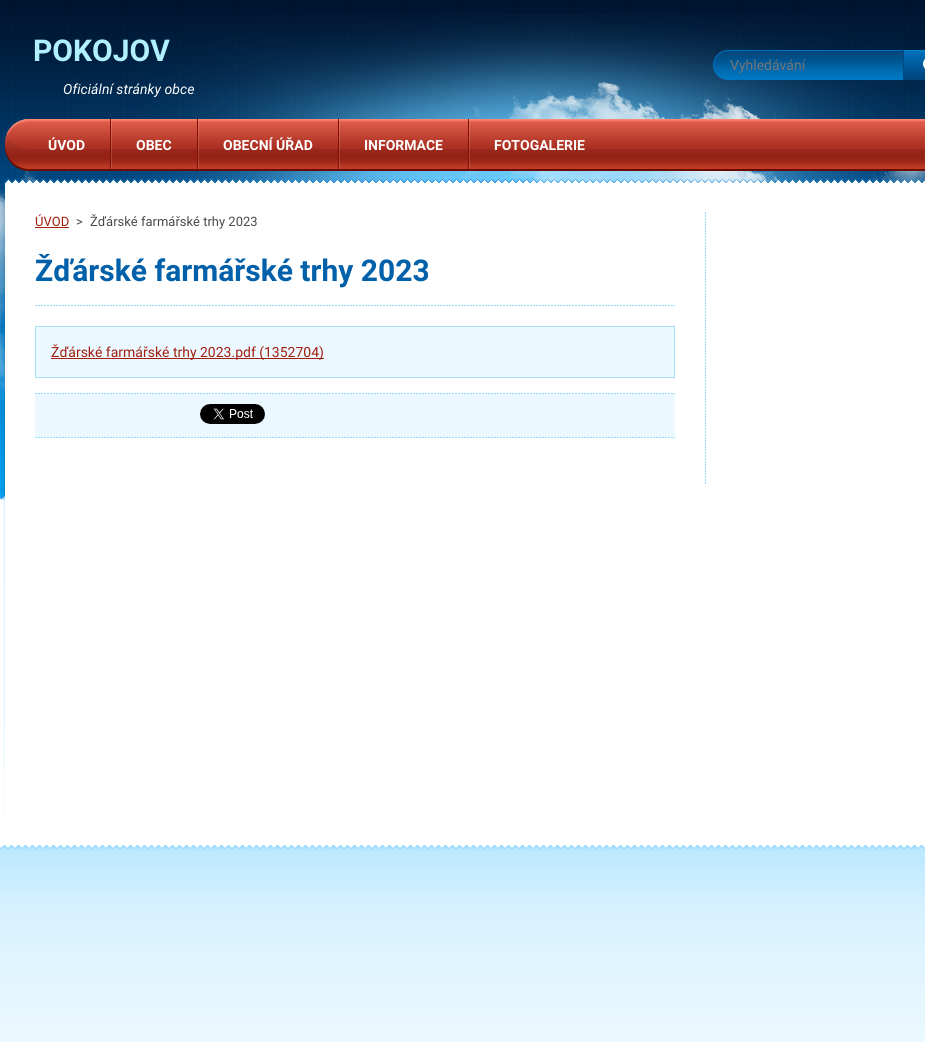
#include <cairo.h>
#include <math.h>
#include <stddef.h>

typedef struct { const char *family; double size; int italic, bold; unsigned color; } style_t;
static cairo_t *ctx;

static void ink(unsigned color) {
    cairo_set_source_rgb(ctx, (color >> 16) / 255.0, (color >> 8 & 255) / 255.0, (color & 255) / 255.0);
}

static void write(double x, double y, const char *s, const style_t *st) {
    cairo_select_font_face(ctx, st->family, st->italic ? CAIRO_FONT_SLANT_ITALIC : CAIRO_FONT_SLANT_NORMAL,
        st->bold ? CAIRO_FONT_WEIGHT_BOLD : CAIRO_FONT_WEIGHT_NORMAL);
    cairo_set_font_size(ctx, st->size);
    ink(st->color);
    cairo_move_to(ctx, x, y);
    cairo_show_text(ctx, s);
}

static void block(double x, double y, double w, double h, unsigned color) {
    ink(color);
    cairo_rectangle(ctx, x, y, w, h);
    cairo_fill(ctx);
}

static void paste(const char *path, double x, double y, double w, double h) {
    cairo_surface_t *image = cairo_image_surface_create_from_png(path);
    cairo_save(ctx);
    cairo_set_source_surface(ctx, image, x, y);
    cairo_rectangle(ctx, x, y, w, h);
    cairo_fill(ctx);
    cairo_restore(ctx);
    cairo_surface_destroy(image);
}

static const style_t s1 = {"Roboto", 30, 0, 1, 0xb1f1ff};
static const style_t s2 = {"Roboto", 14, 1, 0, 0xffffff};
static const style_t s3 = {"Roboto", 14, 0, 0, 0x757575};
static const style_t s4 = {"Roboto", 14, 0, 1, 0xffffff};
static const style_t s5 = {"Roboto", 13, 0, 0, 0xa21e0f};
static const style_t s6 = {"Roboto", 13, 0, 0, 0x4a4a4a};
static const style_t s7 = {"Roboto", 30, 0, 1, 0x0060a9};
static const style_t s8 = {"Roboto", 14, 0, 0, 0xa21e0f};

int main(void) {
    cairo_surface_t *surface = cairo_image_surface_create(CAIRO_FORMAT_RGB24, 925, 1042);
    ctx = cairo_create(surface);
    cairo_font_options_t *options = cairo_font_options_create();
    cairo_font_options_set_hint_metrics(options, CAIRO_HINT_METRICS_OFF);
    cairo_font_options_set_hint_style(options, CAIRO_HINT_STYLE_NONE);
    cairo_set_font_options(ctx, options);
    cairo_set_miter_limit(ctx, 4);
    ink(0xffffff);
    cairo_paint(ctx);
    paste("pic1.png", 0, 0, 925, 499);
    paste("pic2.png", 0, 13, 925, 487);
    write(33, 61, "POKOJOV", &s1);
    write(63, 94, "Oficiální stránky obce", &s2);
    paste("pic3.png", 713, 50, 190, 30);
    write(730, 70, "Vyhledávání", &s3);
    paste("pic4.png", 903, 50, 22, 30);
    paste("pic5.png", 5, 119, 920, 52);
    write(48, 150, "ÚVOD", &s4);
    paste("pic6.png", 110, 119, 2, 50);
    write(136, 150, "OBEC", &s4);
    paste("pic6.png", 197, 119, 2, 50);
    write(223, 150, "OBECNÍ ÚŘAD", &s4);
    paste("pic6.png", 338, 119, 2, 50);
    write(364, 150, "INFORMACE", &s4);
    paste("pic6.png", 468, 119, 2, 50);
    write(494, 150, "FOTOGALERIE", &s4);
    paste("pic7.png", 3, 500, 2, 319);
    paste("pic8.png", 705, 212, 1, 272);
    write(35, 226, "ÚVOD", &s5);
    block(35, 227, 34, 1, 0xa21e0f);
    write(76, 226, ">", &s6);
    write(90, 226, "Žďárské farmářské trhy 2023", &s6);
    paste("pic9.png", 35, 305, 640, 1);
    write(35, 281, "Žďárské farmářské trhy 2023", &s7);
    ink(0xebf8ff);
    cairo_rectangle(ctx, 35.5, 326.5, 639, 51);
    cairo_fill_preserve(ctx);
    ink(0xa9def4);
    cairo_set_line_width(ctx, 1);
    cairo_stroke(ctx);
    block(51, 358, 273, 1, 0xa21e0f);
    write(51, 357, "Žďárské farmářské trhy 2023.pdf (1352704)", &s8);
    paste("pic9.png", 35, 393, 640, 1);
    block(35, 394, 640, 43, 0xebf8ff);
    paste("pic9.png", 35, 437, 640, 1);
    paste("pic10.png", 200, 404, 65, 20);
    paste("pic11.png", 0, 845, 925, 197);
    cairo_surface_write_to_png(surface, "screenshot.png");
    cairo_font_options_destroy(options);
    cairo_destroy(ctx);
    cairo_surface_destroy(surface);
    return 0;
}
